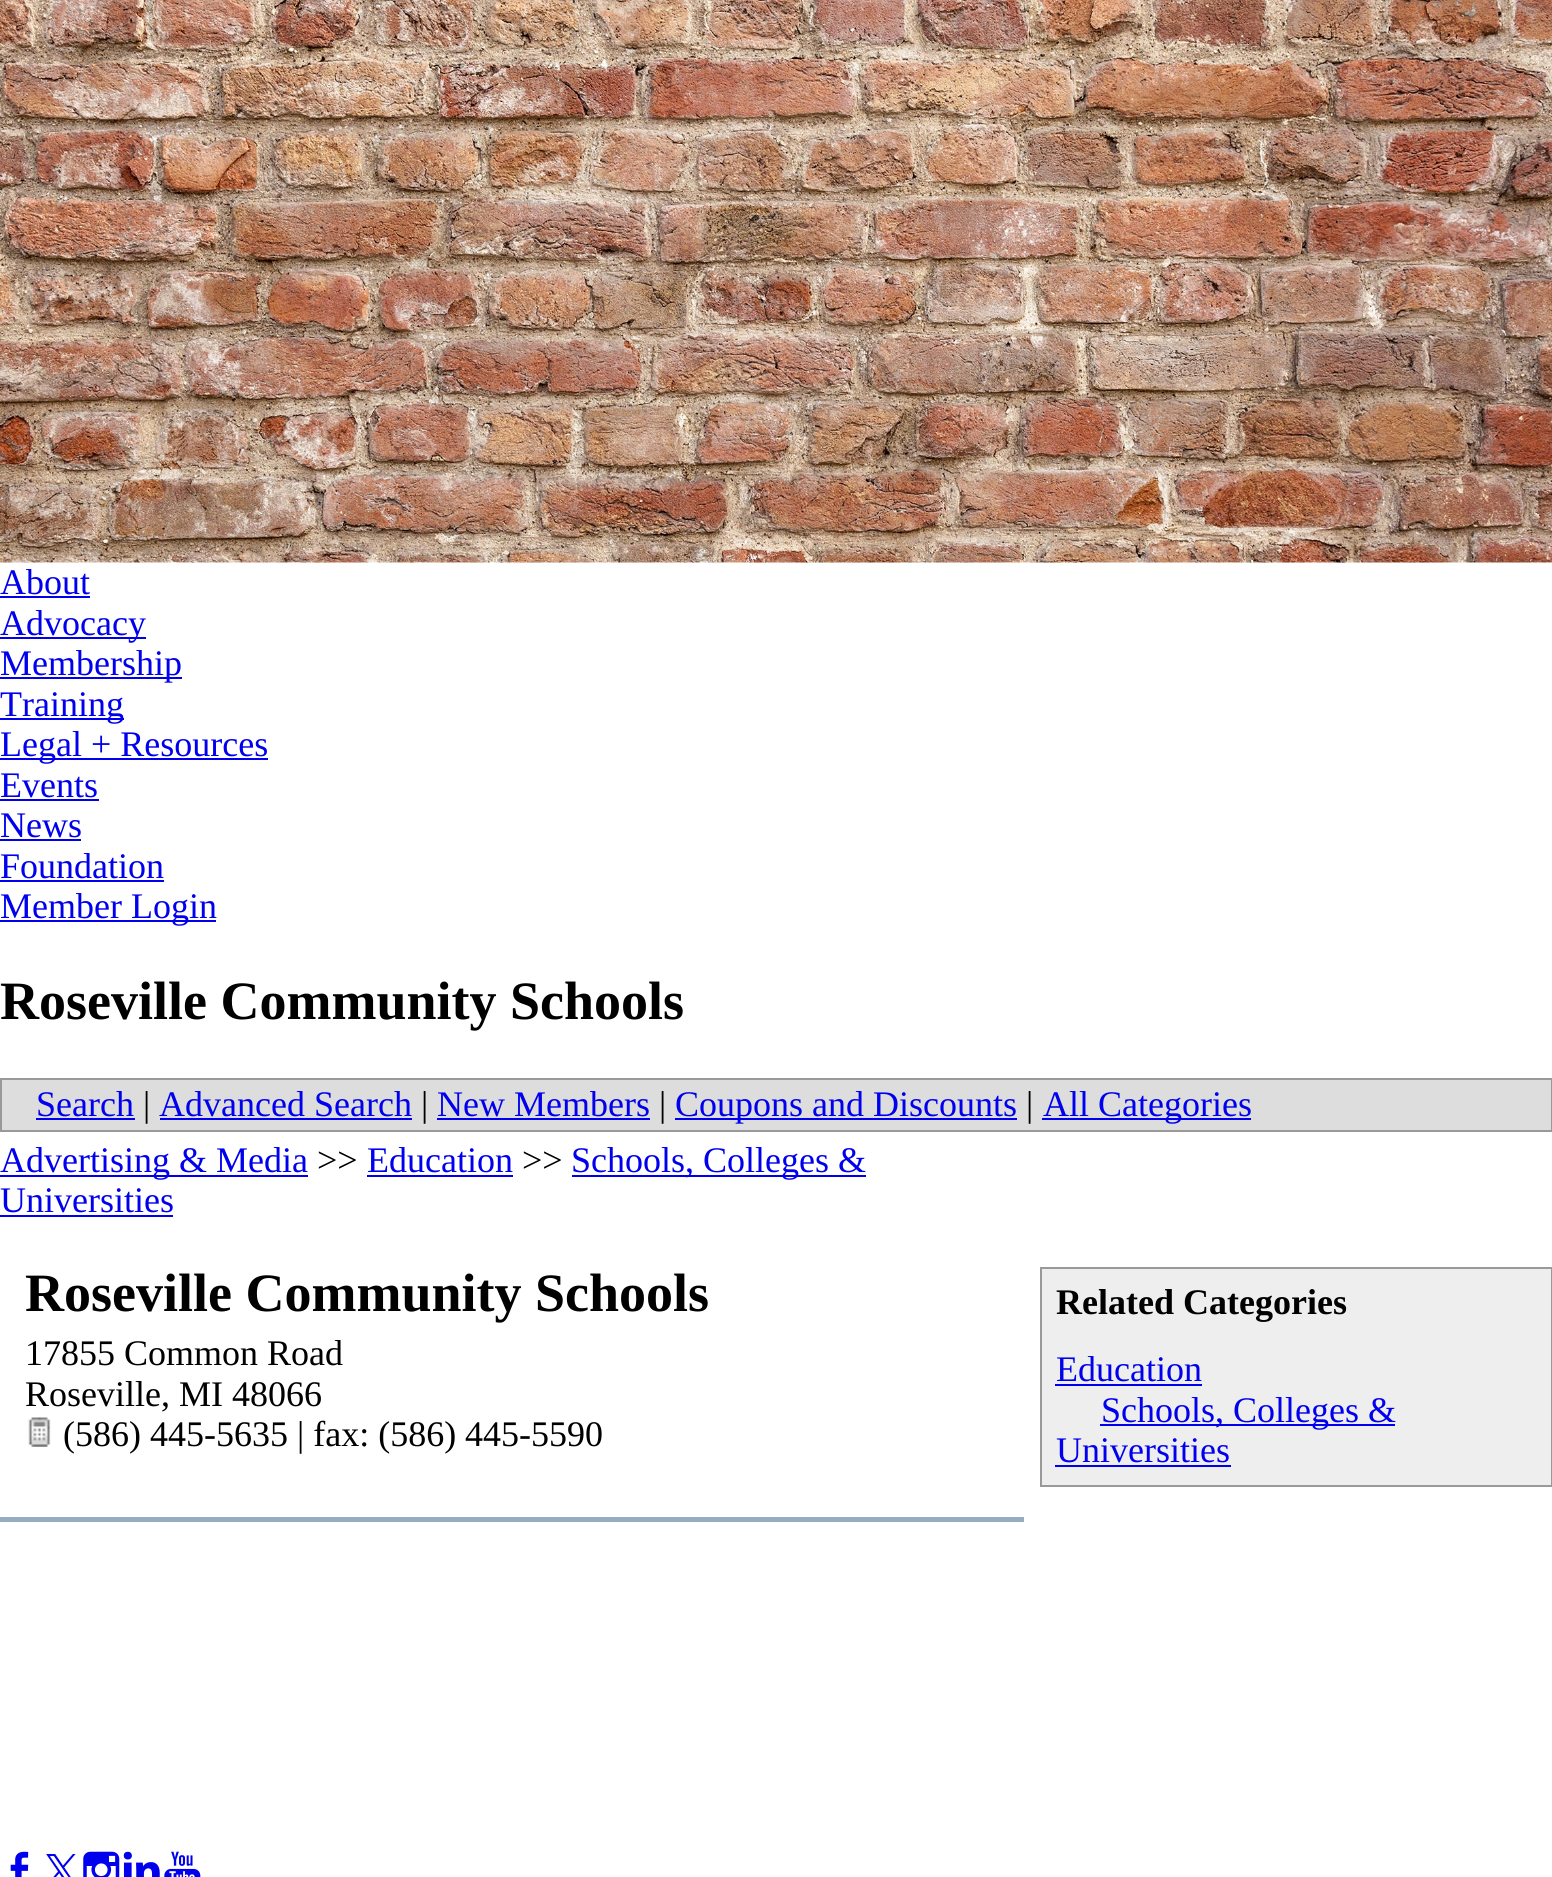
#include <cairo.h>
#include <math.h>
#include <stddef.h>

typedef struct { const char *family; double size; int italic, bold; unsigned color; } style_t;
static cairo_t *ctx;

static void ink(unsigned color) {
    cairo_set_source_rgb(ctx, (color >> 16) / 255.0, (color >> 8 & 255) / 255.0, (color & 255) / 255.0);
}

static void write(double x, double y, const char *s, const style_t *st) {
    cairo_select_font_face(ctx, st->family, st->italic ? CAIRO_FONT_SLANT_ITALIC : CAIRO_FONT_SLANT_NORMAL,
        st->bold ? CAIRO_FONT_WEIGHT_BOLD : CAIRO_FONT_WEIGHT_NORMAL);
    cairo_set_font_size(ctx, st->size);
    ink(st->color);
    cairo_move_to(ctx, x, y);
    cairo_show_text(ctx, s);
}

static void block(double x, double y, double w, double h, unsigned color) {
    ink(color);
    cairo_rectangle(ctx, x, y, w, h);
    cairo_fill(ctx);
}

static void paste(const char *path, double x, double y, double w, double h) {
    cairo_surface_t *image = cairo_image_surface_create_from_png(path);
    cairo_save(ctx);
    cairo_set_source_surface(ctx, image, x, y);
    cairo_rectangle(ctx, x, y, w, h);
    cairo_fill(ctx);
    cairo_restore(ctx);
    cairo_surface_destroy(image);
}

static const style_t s1 = {"Liberation Serif", 36, 0, 0, 0x0000ee};
static const style_t s2 = {"Liberation Serif", 54, 0, 1, 0x000000};
static const style_t s3 = {"Liberation Serif", 36, 0, 0, 0x000000};
static const style_t s4 = {"Liberation Serif", 36, 0, 1, 0x000000};

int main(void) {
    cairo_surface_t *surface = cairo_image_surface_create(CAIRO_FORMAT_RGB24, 1552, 1877);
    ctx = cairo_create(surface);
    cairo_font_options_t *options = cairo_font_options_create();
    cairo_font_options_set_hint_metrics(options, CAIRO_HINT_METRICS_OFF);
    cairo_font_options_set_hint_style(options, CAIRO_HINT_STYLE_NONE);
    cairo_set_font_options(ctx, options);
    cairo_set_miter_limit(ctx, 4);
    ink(0xffffff);
    cairo_paint(ctx);
    paste("pic1.png", 0, 0, 1552, 563);
    write(0, 594, "About", &s1);
    block(0, 596, 90, 2, 0x0000ee);
    block(0, 637, 146, 2, 0x0000ee);
    write(0, 635, "Advocacy", &s1);
    block(0, 677, 182, 2, 0x0000ee);
    write(0, 675, "Membership", &s1);
    block(0, 718, 124, 2, 0x0000ee);
    write(0, 716, "Training", &s1);
    block(0, 758, 268, 2, 0x0000ee);
    write(0, 756, "Legal + Resources", &s1);
    write(0, 797, "Events", &s1);
    block(0, 799, 99, 2, 0x0000ee);
    write(0, 837, "News", &s1);
    block(0, 839, 81, 2, 0x0000ee);
    write(0, 878, "Foundation", &s1);
    block(0, 880, 164, 2, 0x0000ee);
    block(0, 920, 216, 2, 0x0000ee);
    write(0, 918, "Member Login", &s1);
    write(0, 1019, "Roseville Community Schools", &s2);
    ink(0xdddddd);
    cairo_rectangle(ctx, 1, 1079, 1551, 52);
    cairo_fill_preserve(ctx);
    ink(0x999999);
    cairo_stroke(ctx);
    write(36, 1116, "Search", &s1);
    block(36, 1118, 99, 2, 0x0000ee);
    write(143, 1116, "|", &s3);
    write(159, 1116, "Advanced Search", &s1);
    block(160, 1118, 252, 2, 0x0000ee);
    write(421, 1116, "|", &s3);
    write(437, 1116, "New Members", &s1);
    block(437, 1118, 213, 2, 0x0000ee);
    write(659, 1116, "|", &s3);
    block(675, 1118, 342, 2, 0x0000ee);
    write(675, 1116, "Coupons and Discounts", &s1);
    write(1026, 1116, "|", &s3);
    block(1042, 1118, 209, 2, 0x0000ee);
    write(1043, 1116, "All Categories", &s1);
    block(0, 1175, 308, 2, 0x0000ee);
    write(0, 1172, "Advertising & Media", &s1);
    write(317, 1172, ">>", &s3);
    write(367, 1172, "Education", &s1);
    block(367, 1175, 146, 2, 0x0000ee);
    write(522, 1172, ">>", &s3);
    block(572, 1175, 294, 2, 0x0000ee);
    write(571, 1172, "Schools, Colleges &", &s1);
    write(0, 1212, "Universities", &s1);
    block(0, 1215, 173, 2, 0x0000ee);
    write(25, 1311, "Roseville Community Schools", &s2);
    write(25, 1365, "17855 Common Road", &s3);
    write(25, 1406, "Roseville, MI 48066", &s3);
    paste("pic2.png", 28, 1417, 23, 30);
    write(63, 1446, "(586) 445-5635 | fax: (586) 445-5590", &s3);
    block(0, 1517, 1024, 5, 0x96acc3);
    ink(0xeeeeee);
    cairo_rectangle(ctx, 1041, 1268, 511, 218);
    cairo_fill_preserve(ctx);
    ink(0x999999);
    cairo_stroke(ctx);
    write(1056, 1314, "Related Categories", &s4);
    write(1056, 1381, "Education", &s1);
    block(1055, 1384, 147, 2, 0x0000ee);
    block(1100, 1424, 295, 2, 0x0000ee);
    write(1101, 1422, "Schools, Colleges &", &s1);
    write(1056, 1462, "Universities", &s1);
    block(1055, 1465, 176, 2, 0x0000ee);
    paste("pic3.png", 10, 1851, 19, 26);
    paste("pic4.png", 46, 1854, 30, 23);
    paste("pic5.png", 83, 1851, 37, 26);
    paste("pic6.png", 123, 1851, 37, 26);
    paste("pic7.png", 164, 1851, 37, 26);
    cairo_surface_write_to_png(surface, "screenshot.png");
    cairo_font_options_destroy(options);
    cairo_destroy(ctx);
    cairo_surface_destroy(surface);
    return 0;
}
